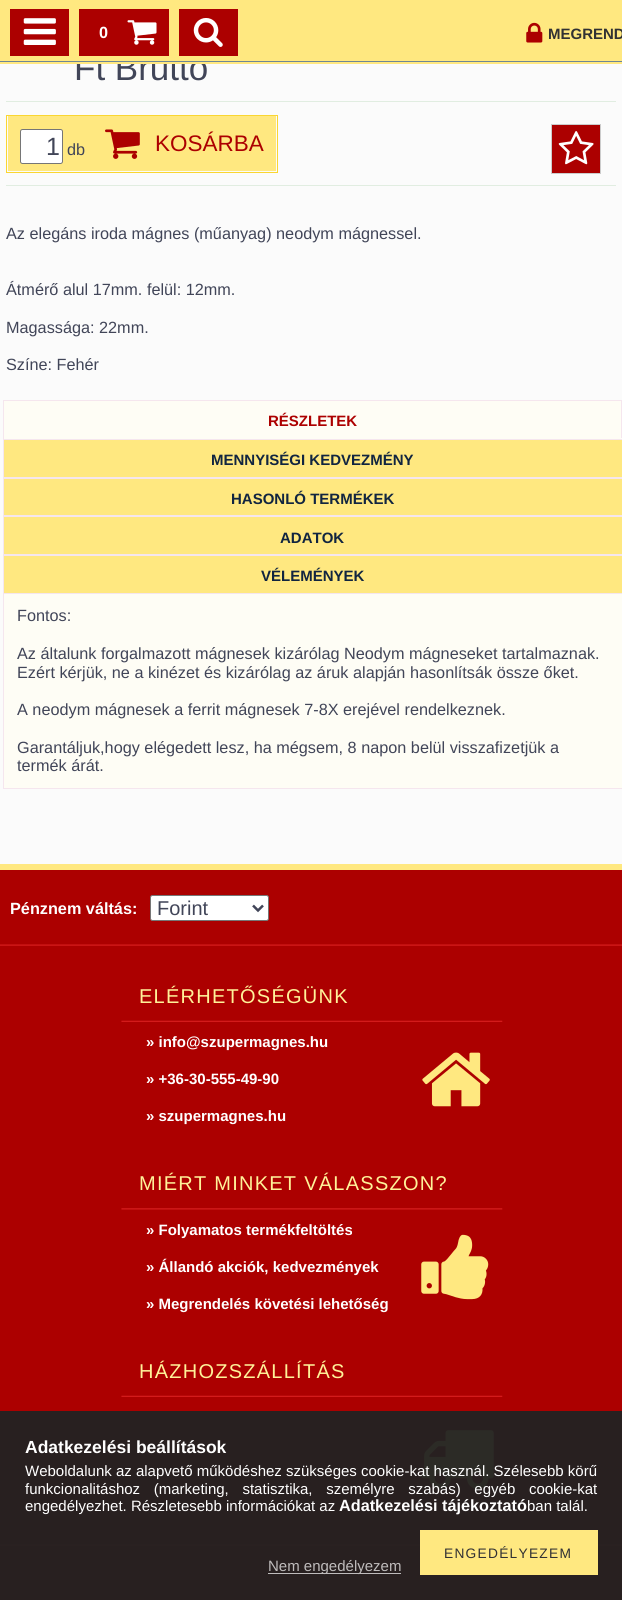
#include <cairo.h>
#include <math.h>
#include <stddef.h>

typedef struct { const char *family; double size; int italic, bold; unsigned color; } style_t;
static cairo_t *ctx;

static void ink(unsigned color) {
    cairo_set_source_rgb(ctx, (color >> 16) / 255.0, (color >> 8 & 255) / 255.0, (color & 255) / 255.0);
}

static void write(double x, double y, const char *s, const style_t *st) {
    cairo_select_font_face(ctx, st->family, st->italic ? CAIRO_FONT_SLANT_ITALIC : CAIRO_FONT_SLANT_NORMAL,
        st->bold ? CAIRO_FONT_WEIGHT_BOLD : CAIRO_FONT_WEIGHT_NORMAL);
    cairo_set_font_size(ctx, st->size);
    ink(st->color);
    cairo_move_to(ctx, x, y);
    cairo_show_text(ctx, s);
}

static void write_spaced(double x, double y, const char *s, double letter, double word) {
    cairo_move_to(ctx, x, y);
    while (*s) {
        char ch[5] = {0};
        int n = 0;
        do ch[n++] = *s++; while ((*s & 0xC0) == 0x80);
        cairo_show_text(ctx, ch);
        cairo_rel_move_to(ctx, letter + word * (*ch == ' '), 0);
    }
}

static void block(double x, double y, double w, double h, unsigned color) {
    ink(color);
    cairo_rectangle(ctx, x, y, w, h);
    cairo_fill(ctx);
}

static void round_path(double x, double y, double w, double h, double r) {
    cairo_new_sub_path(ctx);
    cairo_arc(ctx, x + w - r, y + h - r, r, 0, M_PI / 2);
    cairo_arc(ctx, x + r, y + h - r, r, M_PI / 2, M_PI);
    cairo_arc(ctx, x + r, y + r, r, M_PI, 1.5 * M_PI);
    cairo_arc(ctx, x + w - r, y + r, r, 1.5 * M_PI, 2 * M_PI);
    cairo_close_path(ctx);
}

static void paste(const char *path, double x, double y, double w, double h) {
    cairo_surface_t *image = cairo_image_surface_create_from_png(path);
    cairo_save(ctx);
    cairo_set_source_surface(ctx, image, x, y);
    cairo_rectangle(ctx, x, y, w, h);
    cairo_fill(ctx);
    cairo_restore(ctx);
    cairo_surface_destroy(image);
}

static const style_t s1 = {"Liberation Sans", 35, 0, 0, 0x414558};
static const style_t s2 = {"Liberation Sans", 16.25, 0, 1, 0xffffff};
static const style_t s3 = {"Liberation Sans", 15, 0, 1, 0x313133};
static const style_t s4 = {"Liberation Sans", 25, 0, 0, 0x414558};
static const style_t s5 = {"Liberation Sans", 16.25, 0, 0, 0x414558};
static const style_t s6 = {"Liberation Sans", 22.5, 0, 0, 0xac0000};
static const style_t s7 = {"Liberation Sans", 15, 0, 1, 0xac0000};
static const style_t s8 = {"Liberation Sans", 15, 0, 1, 0x112540};
static const style_t s9 = {"Liberation Sans", 20, 0, 0, 0x414558};
static const style_t s10 = {"Liberation Sans", 15, 0, 1, 0xffffff};
static const style_t s11 = {"Liberation Sans", 17.5, 0, 1, 0xffffff};
static const style_t s12 = {"Liberation Sans", 15, 0, 0, 0xffffff};
static const style_t s13 = {"Liberation Sans", 15, 0, 0, 0xbfbcbc};

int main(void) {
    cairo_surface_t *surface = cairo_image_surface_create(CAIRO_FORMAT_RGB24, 622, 1600);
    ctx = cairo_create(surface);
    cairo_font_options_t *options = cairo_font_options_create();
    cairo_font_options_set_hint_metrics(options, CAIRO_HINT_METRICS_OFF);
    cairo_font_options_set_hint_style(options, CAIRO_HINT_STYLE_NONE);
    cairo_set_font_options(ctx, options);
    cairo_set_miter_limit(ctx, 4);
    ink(0xfbfbfb);
    cairo_paint(ctx);
    write(74, 80, "Ft Brutto", &s1);
    block(0, 0, 622, 64, 0xffe880);
    block(0, 61, 622, 1, 0x6d8696);
    block(10, 9, 59, 47, 0xac0000);
    paste("pic1.png", 23, 18, 33, 27);
    block(79, 9, 90, 47, 0xac0000);
    write(99, 38, "0", &s2);
    paste("pic2.png", 127, 20, 30, 25);
    block(179, 9, 59, 47, 0xac0000);
    paste("pic3.png", 193, 18, 30, 29);
    paste("pic4.png", 526, 22, 17, 21);
    write(548, 39, "MEGREND", &s3);
    block(6, 101, 610, 1, 0xe1ede1);
    block(6, 185, 610, 1, 0xe1ede1);
    cairo_rectangle(ctx, 6.5, 115.5, 271, 57);
    ink(0xfad632);
    cairo_set_line_width(ctx, 1);
    cairo_stroke(ctx);
    block(8, 116, 268, 55, 0xffe880);
    ink(0xffffff);
    round_path(20.5, 129.5, 42, 34, 2);
    cairo_fill_preserve(ctx);
    ink(0x767676);
    cairo_stroke(ctx);
    write(46, 155, "1", &s4);
    write(67, 155, "db", &s5);
    paste("pic5.png", 105, 129, 35, 30);
    write(155, 151, "KOSÁRBA", &s6);
    cairo_rectangle(ctx, 551.5, 124.5, 49, 49);
    cairo_fill_preserve(ctx);
    ink(0xcccccc);
    cairo_stroke(ctx);
    paste("pic6.png", 558, 131, 36, 34);
    write(6, 239, "Az elegáns iroda mágnes (műanyag) neodym mágnessel.", &s5);
    write(6, 295, "Átmérő alul 17mm. felül: 12mm.", &s5);
    write(6, 333, "Magassága: 22mm.", &s5);
    write(6, 370, "Színe: Fehér", &s5);
    block(4, 401, 617, 37, 0xfefdf5);
    block(3, 400, 619, 1, 0xf5e6ee);
    block(621, 400, 1, 39, 0xf5e6ee);
    block(3, 438, 619, 1, 0xfefdf5);
    block(3, 400, 1, 39, 0xf5e6ee);
    write(268, 426, "RÉSZLETEK", &s7);
    ink(0xffe880);
    cairo_rectangle(ctx, 3.5, 439.5, 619, 38);
    cairo_fill_preserve(ctx);
    ink(0xf5e6ee);
    cairo_stroke(ctx);
    write(211, 465, "MENNYISÉGI KEDVEZMÉNY", &s8);
    ink(0xffe880);
    cairo_rectangle(ctx, 3.5, 478.5, 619, 37);
    cairo_fill_preserve(ctx);
    ink(0xf5e6ee);
    cairo_stroke(ctx);
    write(231, 504, "HASONLÓ TERMÉKEK", &s8);
    ink(0xffe880);
    cairo_rectangle(ctx, 3.5, 516.5, 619, 38);
    cairo_fill_preserve(ctx);
    ink(0xf5e6ee);
    cairo_stroke(ctx);
    write(280, 543, "ADATOK", &s8);
    ink(0xfefdf5);
    cairo_rectangle(ctx, 3.5, 593.5, 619, 195);
    cairo_fill_preserve(ctx);
    ink(0xf5e6ee);
    cairo_stroke(ctx);
    ink(0xffe880);
    cairo_rectangle(ctx, 3.5, 555.5, 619, 38);
    cairo_fill_preserve(ctx);
    ink(0xf5e6ee);
    cairo_stroke(ctx);
    write(261, 581, "VÉLEMÉNYEK", &s8);
    write(17, 621, "Fontos:", &s5);
    write(17, 659, "Az általunk forgalmazott mágnesek kizárólag Neodym mágneseket tartalmaznak.", &s5);
    write(17, 678, "Ezért kérjük, ne a kinézet és kizárólag az áruk alapján hasonlítsák össze őket.", &s5);
    write(17, 715, "A neodym mágnesek a ferrit mágnesek 7-8X erejével rendelkeznek.", &s5);
    write(17, 753, "Garantáljuk,hogy elégedett lesz, ha mégsem, 8 napon belül visszafizetjük a", &s5);
    write(17, 771, "termék árát.", &s5);
    block(0, 864, 622, 6, 0xffe880);
    block(0, 870, 622, 730, 0xac0000);
    paste("pic7.png", 0, 944, 622, 2);
    write(10, 914, "Pénznem váltás:", &s2);
    round_path(150.5, 895.5, 118, 25, 2);
    cairo_fill_preserve(ctx);
    ink(0x767676);
    cairo_stroke(ctx);
    cairo_new_path(ctx);
    cairo_move_to(ctx, 253, 905.5);
    cairo_line_to(ctx, 258, 910.5);
    cairo_line_to(ctx, 263, 905.5);
    ink(0x414558);
    cairo_set_line_width(ctx, 2.5);
    cairo_stroke(ctx);
    write(157, 915, "Forint", &s9);
    paste("pic7.png", 0, 1544, 622, 2);
    paste("pic8.png", 121, 1020, 382, 2);
    ink(0xfff299);
    write_spaced(139, 1003, "ELÉRHETŐSÉGÜNK", 1.25, 0);
    write(146, 1047, "» info@szupermagnes.hu", &s10);
    write(146, 1084, "» +36-30-555-49-90", &s10);
    write(146, 1121, "» szupermagnes.hu", &s10);
    paste("pic9.png", 422, 1052, 68, 55);
    paste("pic10.png", 121, 1208, 382, 2);
    cairo_select_font_face(ctx, "Liberation Sans", CAIRO_FONT_SLANT_NORMAL, CAIRO_FONT_WEIGHT_NORMAL);
    cairo_set_font_size(ctx, 20);
    ink(0xfff299);
    write_spaced(139, 1190, "MIÉRT MINKET VÁLASSZON?", 1.25, 0);
    write(146, 1235, "» Folyamatos termékfeltöltés", &s10);
    write(146, 1272, "» Állandó akciók, kedvezmények", &s10);
    write(146, 1309, "» Megrendelés követési lehetőség", &s10);
    paste("pic11.png", 421, 1234, 68, 66);
    paste("pic8.png", 121, 1395, 382, 2);
    cairo_select_font_face(ctx, "Liberation Sans", CAIRO_FONT_SLANT_NORMAL, CAIRO_FONT_WEIGHT_NORMAL);
    cairo_set_font_size(ctx, 20);
    ink(0xfff299);
    write_spaced(139, 1378, "HÁZHOZSZÁLLÍTÁS", 1.25, 0);
    paste("pic12.png", 421, 1430, 73, 60);
    cairo_set_source_rgba(ctx, 0.133, 0.133, 0.133, 0.95);
    cairo_rectangle(ctx, 0, 1411, 622, 189);
    cairo_fill(ctx);
    write(25, 1453, "Adatkezelési beállítások", &s11);
    write(25, 1476, "Weboldalunk az alapvető működéshez szükséges cookie-kat használ. Szélesebb körű", &s12);
    write_spaced(25, 1494, "funkcionalitáshoz (marketing, statisztika, személyre szabás) egyéb cookie-kat", 0, 9.5);
    write(25, 1511, "engedélyezhet. Részletesebb információkat az", &s12);
    write(339, 1511, "Adatkezelési tájékoztató", &s2);
    write(527, 1511, "ban talál.", &s12);
    block(420, 1530, 178, 45, 0xffe880);
    cairo_set_font_size(ctx, 13.75);
    ink(0x313133);
    write_spaced(444, 1558, "ENGEDÉLYEZEM", 1.25, 0);
    block(268, 1573, 133, 1, 0xbfbcbc);
    write(268, 1571, "Nem engedélyezem", &s13);
    cairo_surface_write_to_png(surface, "screenshot.png");
    cairo_font_options_destroy(options);
    cairo_destroy(ctx);
    cairo_surface_destroy(surface);
    return 0;
}
